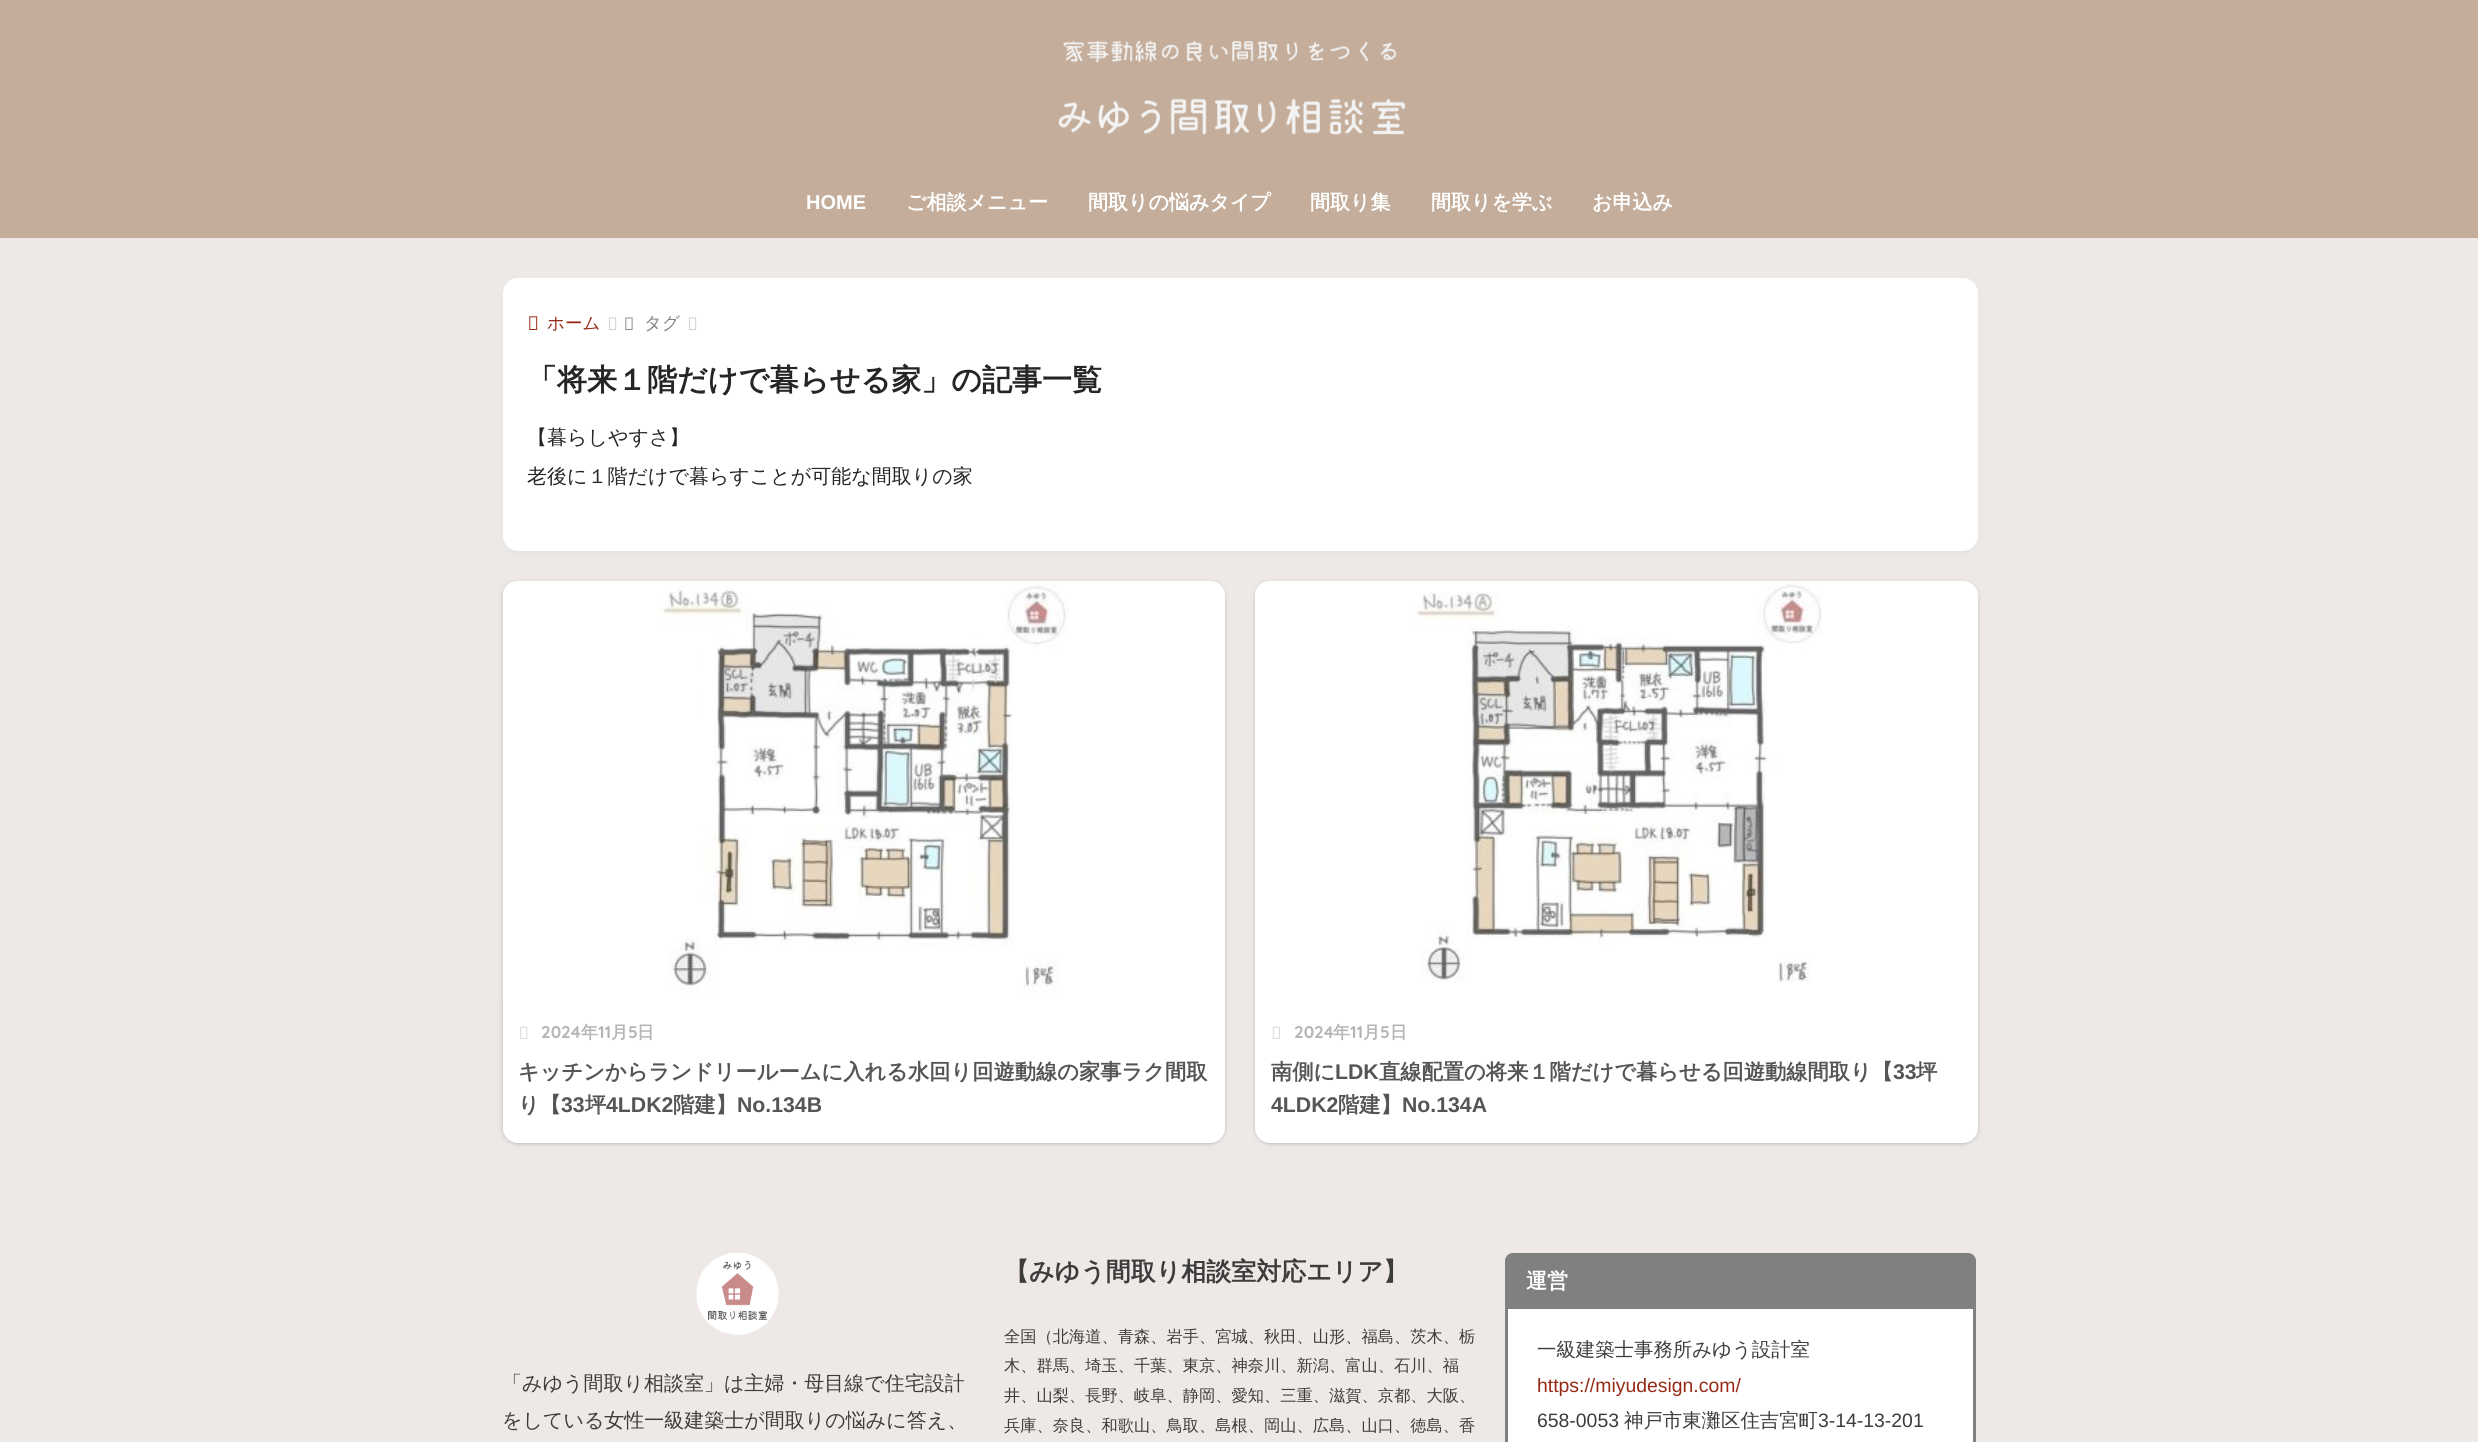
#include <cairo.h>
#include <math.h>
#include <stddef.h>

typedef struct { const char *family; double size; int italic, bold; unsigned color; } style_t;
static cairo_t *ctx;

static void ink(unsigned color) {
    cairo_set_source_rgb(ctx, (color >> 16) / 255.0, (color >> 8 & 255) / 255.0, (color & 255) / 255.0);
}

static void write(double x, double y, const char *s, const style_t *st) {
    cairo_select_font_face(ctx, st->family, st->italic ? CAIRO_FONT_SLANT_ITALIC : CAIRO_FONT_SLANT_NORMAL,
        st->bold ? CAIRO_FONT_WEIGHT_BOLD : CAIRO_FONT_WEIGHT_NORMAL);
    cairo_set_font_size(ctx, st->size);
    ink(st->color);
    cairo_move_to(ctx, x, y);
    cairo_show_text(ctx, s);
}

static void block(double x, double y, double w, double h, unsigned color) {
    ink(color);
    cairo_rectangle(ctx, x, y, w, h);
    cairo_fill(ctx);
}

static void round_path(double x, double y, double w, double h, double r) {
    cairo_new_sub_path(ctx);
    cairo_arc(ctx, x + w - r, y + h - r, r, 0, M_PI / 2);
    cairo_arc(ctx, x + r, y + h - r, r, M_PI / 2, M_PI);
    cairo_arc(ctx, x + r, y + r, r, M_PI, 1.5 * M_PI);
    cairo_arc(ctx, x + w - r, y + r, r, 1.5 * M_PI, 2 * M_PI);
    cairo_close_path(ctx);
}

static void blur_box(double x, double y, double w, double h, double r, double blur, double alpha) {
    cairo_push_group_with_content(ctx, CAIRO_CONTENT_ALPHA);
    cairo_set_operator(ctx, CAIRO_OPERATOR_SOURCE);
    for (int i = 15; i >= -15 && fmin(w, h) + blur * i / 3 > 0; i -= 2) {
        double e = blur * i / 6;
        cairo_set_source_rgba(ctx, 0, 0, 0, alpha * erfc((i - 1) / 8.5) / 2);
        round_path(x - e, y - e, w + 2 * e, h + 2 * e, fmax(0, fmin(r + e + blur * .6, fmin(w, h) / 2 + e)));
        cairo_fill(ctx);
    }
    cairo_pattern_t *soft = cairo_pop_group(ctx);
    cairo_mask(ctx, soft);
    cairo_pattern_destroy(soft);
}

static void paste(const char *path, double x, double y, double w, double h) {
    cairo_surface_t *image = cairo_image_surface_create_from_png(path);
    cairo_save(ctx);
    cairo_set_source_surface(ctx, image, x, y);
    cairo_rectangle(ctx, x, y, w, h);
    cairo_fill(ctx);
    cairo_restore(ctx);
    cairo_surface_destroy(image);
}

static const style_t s1 = {"Liberation Sans", 20, 0, 1, 0xffffff};
static const style_t s2 = {"WenQuanYi Zen Hei", 20, 0, 1, 0xffffff};
static const style_t s3 = {"WenQuanYi Zen Hei Medium", 17.5, 0, 0, 0x972a16};
static const style_t s4 = {"WenQuanYi Zen Hei Medium", 17.5, 0, 0, 0x808080};
static const style_t s5 = {"WenQuanYi Zen Hei", 30, 0, 1, 0x252525};
static const style_t s6 = {"WenQuanYi Zen Hei Medium", 20, 0, 0, 0x252525};
static const style_t s7 = {"Quicksand", 17, 0, 1, 0xb5b5b5};
static const style_t s8 = {"WenQuanYi Zen Hei", 17, 0, 1, 0xb5b5b5};
static const style_t s9 = {"WenQuanYi Zen Hei", 21.25, 0, 1, 0x555555};
static const style_t s10 = {"Liberation Sans", 21.25, 0, 1, 0x555555};
static const style_t s11 = {"WenQuanYi Zen Hei Medium", 20, 0, 0, 0x3c3c3c};
static const style_t s12 = {"WenQuanYi Zen Hei", 25, 0, 1, 0x3c3c3c};
static const style_t s13 = {"WenQuanYi Zen Hei Medium", 16.25, 0, 0, 0x3c3c3c};
static const style_t s14 = {"WenQuanYi Zen Hei", 21, 0, 1, 0xffffff};
static const style_t s15 = {"WenQuanYi Zen Hei Medium", 19.4, 0, 0, 0x3c3c3c};
static const style_t s16 = {"Liberation Sans", 19.4, 0, 0, 0x972a16};
static const style_t s17 = {"Liberation Sans", 19.4, 0, 0, 0x3c3c3c};

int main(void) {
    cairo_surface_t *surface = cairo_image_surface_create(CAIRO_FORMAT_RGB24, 2478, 1442);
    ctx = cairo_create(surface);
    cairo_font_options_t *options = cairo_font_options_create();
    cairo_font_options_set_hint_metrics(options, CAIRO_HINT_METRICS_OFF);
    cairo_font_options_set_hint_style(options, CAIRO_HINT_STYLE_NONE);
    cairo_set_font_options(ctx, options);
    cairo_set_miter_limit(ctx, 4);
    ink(0xeee9e6);
    cairo_paint(ctx);
    block(0, 0, 2478, 238, 0xc4ae9b);
    paste("pic1.png", 1058, 40, 348, 95);
    write(806, 209, "HOME", &s1);
    write(906, 209, "ご相談メニュー", &s2);
    write(1088, 209, "間取りの悩みタイプ", &s2);
    write(1310, 209, "間取り集", &s2);
    write(1431, 209, "間取りを学ぶ", &s2);
    write(1592, 209, "お申込み", &s2);
    ink(0x4385bb);
    blur_box(503, 280, 1475, 274, 15, 2.5, 0.07);
    ink(0xffffff);
    round_path(503, 278, 1475, 273, 15);
    cairo_fill(ctx);
    paste("pic2.png", 529, 316, 9, 14);
    write(547, 329, "ホーム", &s3);
    paste("pic3.png", 609, 317, 8, 13);
    paste("pic4.png", 625, 317, 8, 13);
    write(644, 329, "タグ", &s4);
    paste("pic3.png", 689, 317, 8, 13);
    write(527, 390, "「将来１階だけで暮らせる家」の記事一覧", &s5);
    write(527, 444, "【暮らしやすさ】", &s6);
    write(527, 483, "老後に１階だけで暮らすことが可能な間取りの家", &s6);
    ink(0x182c54);
    blur_box(501, 581, 725, 564, 16, 2, 0.1);
    blur_box(503, 583, 722, 561, 15, 1, 0.1);
    ink(0xffffff);
    round_path(503, 581, 722, 562, 15);
    cairo_fill(ctx);
    paste("pic5.png", 502, 582, 723, 416);
    paste("pic6.png", 520, 1026, 8, 13);
    write(541, 1038, "2024", &s7);
    write(581, 1038, "年", &s8);
    write(598, 1038, "11", &s7);
    write(611, 1038, "月", &s8);
    write(628, 1038, "5", &s7);
    write(637, 1038, "日", &s8);
    write(518, 1079, "キッチンからランドリールームに入れる水回り回遊動線の家事ラク間取", &s9);
    write(518, 1112, "り【", &s9);
    write(561, 1112, "33", &s10);
    write(585, 1112, "坪", &s9);
    write(606, 1112, "4LDK2", &s10);
    write(673, 1112, "階建】", &s9);
    write(737, 1112, "No.134B", &s10);
    ink(0x182c54);
    blur_box(1254, 581, 725, 564, 16, 2, 0.1);
    blur_box(1255, 583, 723, 561, 15, 1, 0.1);
    ink(0xffffff);
    round_path(1255, 581, 723, 562, 15);
    cairo_fill(ctx);
    paste("pic7.png", 1255, 582, 567, 401);
    paste("pic8.png", 1272, 1026, 8, 13);
    write(1294, 1038, "2024", &s7);
    write(1333, 1038, "年", &s8);
    write(1350, 1038, "11", &s7);
    write(1363, 1038, "月", &s8);
    write(1380, 1038, "5", &s7);
    write(1390, 1038, "日", &s8);
    write(1271, 1079, "南側に", &s9);
    write(1335, 1079, "LDK", &s10);
    write(1379, 1079, "直線配置の将来１階だけで暮らせる回遊動線間取り【", &s9);
    write(1893, 1079, "33", &s10);
    write(1916, 1079, "坪", &s9);
    write(1271, 1112, "4LDK2", &s10);
    write(1338, 1112, "階建】", &s9);
    write(1402, 1112, "No.134A", &s10);
    paste("pic9.png", 696, 1252, 83, 83);
    write(502, 1390, "「みゆう間取り相談室」は主婦・母目線で住宅設計", &s11);
    write(502, 1427, "をしている女性一級建築士が間取りの悩みに答え、", &s11);
    write(1004, 1280, "【みゆう間取り相談室対応エリア】", &s12);
    write(1004, 1342, "全国（北海道、青森、岩手、宮城、秋田、山形、福島、茨木、栃", &s13);
    write(1004, 1371, "木、群馬、埼玉、千葉、東京、神奈川、新潟、富山、石川、福", &s13);
    write(1004, 1401, "井、山梨、長野、岐阜、静岡、愛知、三重、滋賀、京都、大阪、", &s13);
    write(1004, 1431, "兵庫、奈良、和歌山、鳥取、島根、岡山、広島、山口、徳島、香", &s13);
    ink(0x808080);
    cairo_new_path(ctx);
    cairo_move_to(ctx, 1513, 1253);
    cairo_line_to(ctx, 1968, 1253);
    cairo_curve_to(ctx, 1972.5, 1253, 1976, 1256.5, 1976, 1261);
    cairo_line_to(ctx, 1976, 1309);
    cairo_line_to(ctx, 1505, 1309);
    cairo_line_to(ctx, 1505, 1261);
    cairo_curve_to(ctx, 1505, 1256.5, 1508.5, 1253, 1513, 1253);
    cairo_close_path(ctx);
    cairo_fill(ctx);
    write(1526, 1288, "運営", &s14);
    cairo_rectangle(ctx, 1506.5, 1307.5, 468, 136);
    cairo_fill_preserve(ctx);
    ink(0x808080);
    cairo_set_line_width(ctx, 3);
    cairo_stroke(ctx);
    write(1537, 1356, "一級建築士事務所みゆう設計室", &s15);
    write(1537, 1392, "https://miyudesign.com/", &s16);
    write(1537, 1427, "658-0053", &s17);
    write(1624, 1427, "神戸市東灘区住吉宮町", &s15);
    write(1818, 1427, "3-14-13-201", &s17);
    cairo_surface_write_to_png(surface, "screenshot.png");
    cairo_font_options_destroy(options);
    cairo_destroy(ctx);
    cairo_surface_destroy(surface);
    return 0;
}
